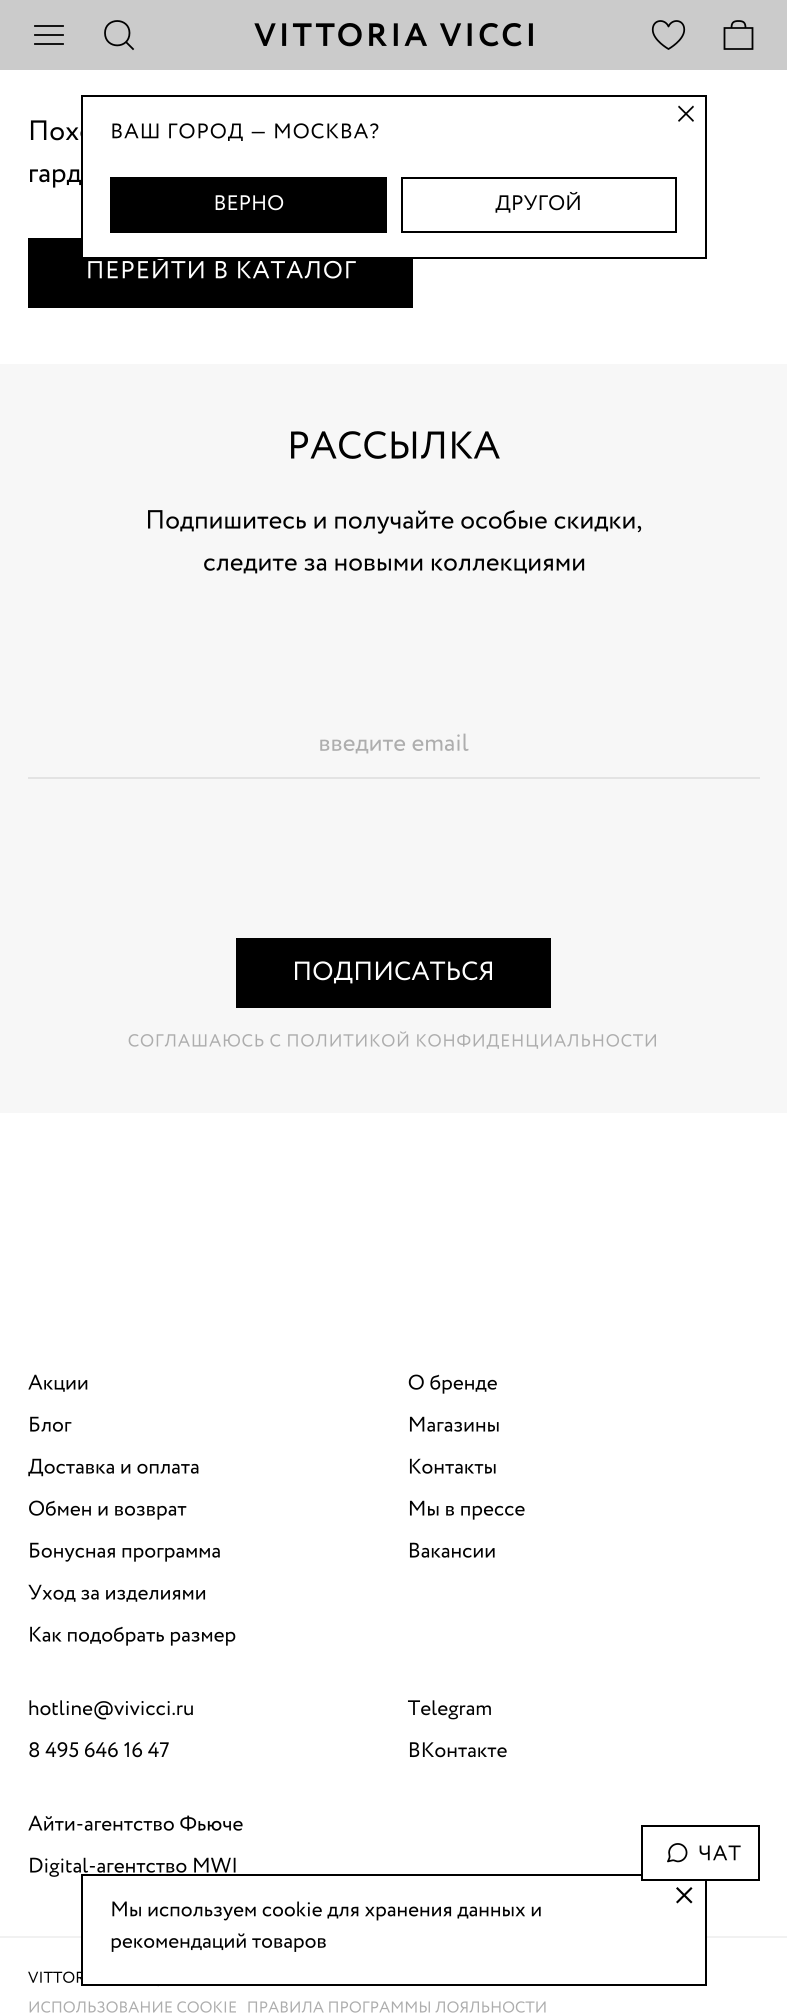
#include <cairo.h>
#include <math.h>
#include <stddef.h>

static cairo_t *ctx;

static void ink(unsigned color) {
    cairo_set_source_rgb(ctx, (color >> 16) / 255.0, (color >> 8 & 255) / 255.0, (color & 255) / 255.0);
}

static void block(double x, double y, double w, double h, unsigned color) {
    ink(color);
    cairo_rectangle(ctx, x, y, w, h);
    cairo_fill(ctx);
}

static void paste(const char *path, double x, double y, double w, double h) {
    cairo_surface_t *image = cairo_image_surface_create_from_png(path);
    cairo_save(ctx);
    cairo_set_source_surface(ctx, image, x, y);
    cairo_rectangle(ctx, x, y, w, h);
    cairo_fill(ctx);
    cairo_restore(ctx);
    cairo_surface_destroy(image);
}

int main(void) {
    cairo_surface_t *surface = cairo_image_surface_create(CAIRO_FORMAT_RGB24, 787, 2013);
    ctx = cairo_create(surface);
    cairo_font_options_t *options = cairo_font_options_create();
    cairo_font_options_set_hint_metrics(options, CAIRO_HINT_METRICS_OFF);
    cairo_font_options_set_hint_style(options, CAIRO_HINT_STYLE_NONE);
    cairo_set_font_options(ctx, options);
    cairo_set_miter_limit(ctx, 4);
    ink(0xffffff);
    cairo_paint(ctx);
    block(0, 0, 787, 70, 0xcbcbcb);
    paste("pic1.png", 32, 0, 621, 13);
    paste("pic2.png", 30, 26, 387, 38);
    paste("pic3.png", 30, 120, 51, 21);
    paste("pic4.png", 30, 169, 51, 19);
    block(28, 238, 385, 70, 0x000000);
    paste("pic5.png", 88, 259, 268, 20);
    block(0, 364, 787, 749, 0xf7f7f7);
    paste("pic6.png", 291, 431, 209, 28);
    paste("pic7.png", 148, 510, 494, 24);
    paste("pic8.png", 204, 558, 381, 16);
    block(28, 777, 732, 2, 0xe3e3e3);
    paste("pic9.png", 320, 733, 149, 21);
    block(236, 938, 315, 70, 0x000000);
    paste("pic10.png", 295, 961, 197, 23);
    paste("pic11.png", 128, 1034, 136, 13);
    paste("pic12.png", 270, 1031, 386, 18);
    cairo_new_path(ctx);
    cairo_move_to(ctx, 35, 26);
    cairo_line_to(ctx, 63, 26);
    cairo_move_to(ctx, 35, 35);
    cairo_line_to(ctx, 63, 35);
    cairo_move_to(ctx, 35, 44);
    cairo_line_to(ctx, 63, 44);
    cairo_set_line_width(ctx, 1.8);
    cairo_set_line_cap(ctx, CAIRO_LINE_CAP_SQUARE);
    cairo_stroke(ctx);
    cairo_new_path(ctx);
    cairo_move_to(ctx, 126, 42);
    cairo_line_to(ctx, 133, 49);
    cairo_move_to(ctx, 129.5, 33);
    cairo_curve_to(ctx, 129.5, 49.5, 105, 49.5, 105, 33);
    cairo_curve_to(ctx, 105, 17, 129.5, 17, 129.5, 33);
    cairo_close_path(ctx);
    cairo_set_line_join(ctx, CAIRO_LINE_JOIN_ROUND);
    cairo_stroke(ctx);
    paste("pic13.png", 651, 20, 35, 30);
    paste("pic14.png", 723, 20, 31, 30);
    paste("pic15.png", 254, 23, 279, 24);
    paste("pic16.png", 28, 1374, 60, 18);
    paste("pic17.png", 30, 1416, 42, 16);
    paste("pic18.png", 28, 1458, 171, 19);
    paste("pic19.png", 29, 1500, 158, 20);
    paste("pic20.png", 30, 1542, 190, 20);
    paste("pic21.png", 28, 1584, 178, 18);
    paste("pic22.png", 30, 1626, 206, 20);
    paste("pic23.png", 29, 1700, 164, 20);
    paste("pic24.png", 29, 1742, 140, 16);
    paste("pic25.png", 28, 1815, 215, 16);
    paste("pic26.png", 30, 1857, 206, 20);
    paste("pic27.png", 408, 1374, 89, 20);
    paste("pic28.png", 409, 1416, 90, 16);
    paste("pic29.png", 409, 1458, 87, 16);
    paste("pic30.png", 409, 1500, 116, 20);
    paste("pic31.png", 409, 1542, 86, 16);
    paste("pic32.png", 407, 1700, 84, 20);
    paste("pic33.png", 409, 1742, 98, 16);
    block(0, 1936, 787, 2, 0xf1f1f1);
    paste("pic34.png", 28, 1971, 131, 16);
    paste("pic35.png", 29, 2001, 207, 12);
    paste("pic36.png", 248, 2001, 298, 12);
    block(83, 238, 330, 19, 0xffffff);
    cairo_rectangle(ctx, 82, 96, 624, 162);
    ink(0x000000);
    cairo_set_line_width(ctx, 2);
    cairo_set_line_cap(ctx, CAIRO_LINE_CAP_BUTT);
    cairo_set_line_join(ctx, CAIRO_LINE_JOIN_MITER);
    cairo_stroke(ctx);
    cairo_new_path(ctx);
    cairo_move_to(ctx, 678, 120.5);
    cairo_line_to(ctx, 693, 105.5);
    cairo_line_to(ctx, 694, 107);
    cairo_line_to(ctx, 679, 122);
    cairo_close_path(ctx);
    cairo_fill(ctx);
    cairo_new_path(ctx);
    cairo_move_to(ctx, 679, 105.5);
    cairo_line_to(ctx, 694, 120.5);
    cairo_line_to(ctx, 693, 122);
    cairo_line_to(ctx, 678, 107);
    cairo_close_path(ctx);
    cairo_fill(ctx);
    paste("pic37.png", 112, 123, 267, 18);
    block(110, 177, 277, 56, 0x000000);
    paste("pic38.png", 215, 195, 69, 16);
    cairo_rectangle(ctx, 402, 178, 274, 54);
    cairo_stroke(ctx);
    paste("pic39.png", 495, 191, 85, 22);
    block(83, 1936, 622, 48, 0xffffff);
    cairo_rectangle(ctx, 82, 1875, 624, 110);
    ink(0x000000);
    cairo_stroke(ctx);
    block(643, 1874, 64, 5, 0xffffff);
    cairo_rectangle(ctx, 642, 1826, 117, 54);
    ink(0x000000);
    cairo_stroke(ctx);
    paste("pic40.png", 667, 1843, 21, 20);
    paste("pic41.png", 699, 1845, 42, 16);
    cairo_new_path(ctx);
    cairo_move_to(ctx, 676, 1902);
    cairo_line_to(ctx, 691, 1887);
    cairo_line_to(ctx, 692.5, 1888.5);
    cairo_line_to(ctx, 677.5, 1903.5);
    cairo_close_path(ctx);
    cairo_fill(ctx);
    cairo_new_path(ctx);
    cairo_move_to(ctx, 677.5, 1887);
    cairo_line_to(ctx, 692.5, 1902);
    cairo_line_to(ctx, 691, 1903.5);
    cairo_line_to(ctx, 676, 1888.5);
    cairo_close_path(ctx);
    cairo_fill(ctx);
    paste("pic42.png", 112, 1901, 429, 20);
    paste("pic43.png", 111, 1933, 215, 19);
    cairo_surface_write_to_png(surface, "screenshot.png");
    cairo_font_options_destroy(options);
    cairo_destroy(ctx);
    cairo_surface_destroy(surface);
    return 0;
}
